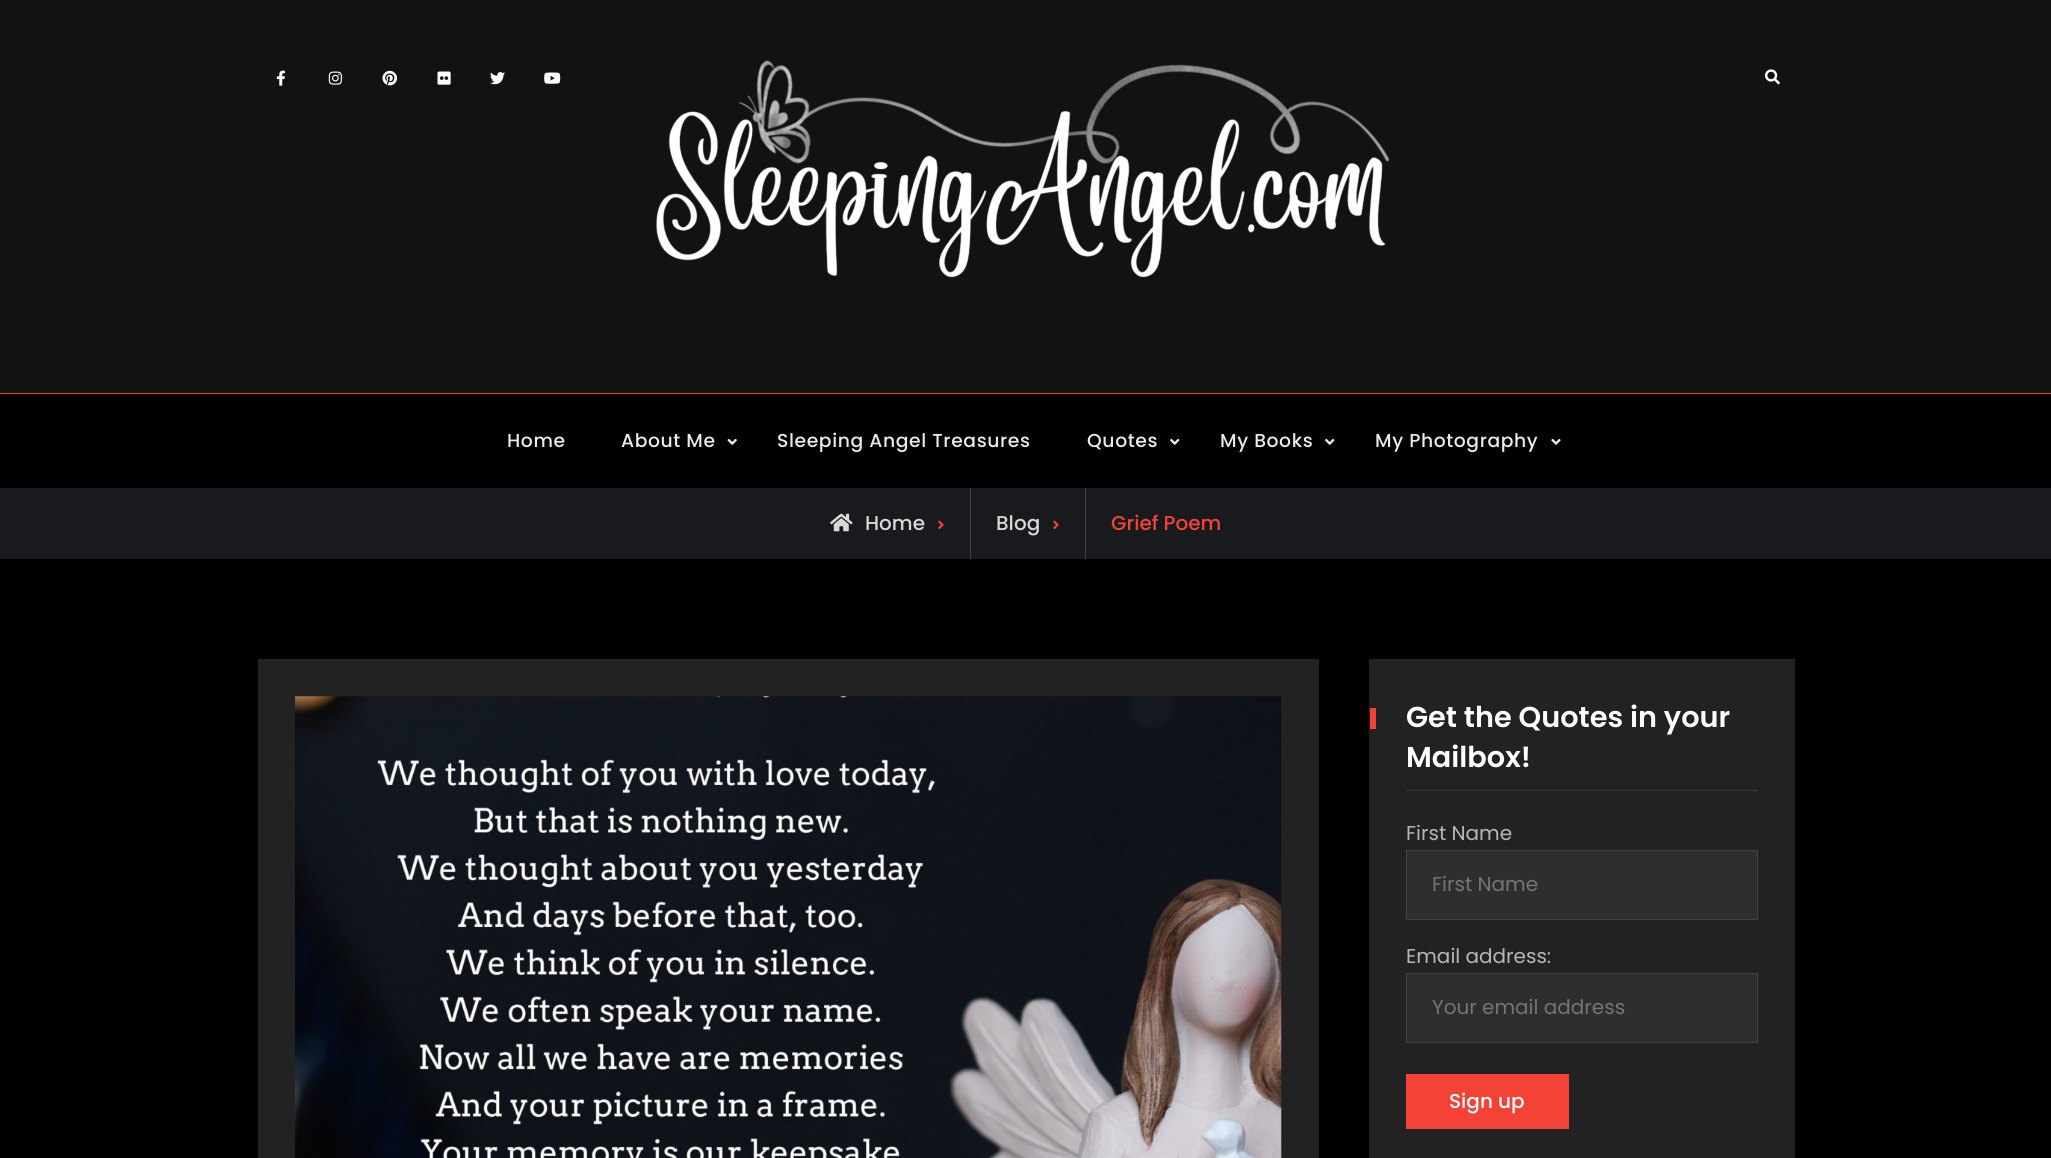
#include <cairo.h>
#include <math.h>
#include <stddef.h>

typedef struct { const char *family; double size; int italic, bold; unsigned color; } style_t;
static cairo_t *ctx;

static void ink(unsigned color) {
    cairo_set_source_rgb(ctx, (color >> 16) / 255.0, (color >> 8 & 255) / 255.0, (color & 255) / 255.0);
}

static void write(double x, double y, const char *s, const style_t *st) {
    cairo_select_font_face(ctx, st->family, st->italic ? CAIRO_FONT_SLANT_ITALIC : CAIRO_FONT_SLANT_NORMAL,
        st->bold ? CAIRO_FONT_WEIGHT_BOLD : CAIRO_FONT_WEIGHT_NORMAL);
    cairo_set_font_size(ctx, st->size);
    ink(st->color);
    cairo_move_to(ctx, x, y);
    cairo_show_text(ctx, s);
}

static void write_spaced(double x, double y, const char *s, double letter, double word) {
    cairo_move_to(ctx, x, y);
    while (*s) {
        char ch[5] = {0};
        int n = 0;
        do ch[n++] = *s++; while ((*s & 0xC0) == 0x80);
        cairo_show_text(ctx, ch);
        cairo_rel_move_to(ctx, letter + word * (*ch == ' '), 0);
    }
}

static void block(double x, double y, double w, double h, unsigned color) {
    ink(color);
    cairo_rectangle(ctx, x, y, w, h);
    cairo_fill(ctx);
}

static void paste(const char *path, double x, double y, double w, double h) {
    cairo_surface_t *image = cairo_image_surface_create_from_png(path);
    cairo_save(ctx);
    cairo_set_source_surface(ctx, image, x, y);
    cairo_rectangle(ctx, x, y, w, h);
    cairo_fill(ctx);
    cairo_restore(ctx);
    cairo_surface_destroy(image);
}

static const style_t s1 = {"Poppins Medium", 20, 0, 0, 0xdad8d8};
static const style_t s2 = {"Poppins Medium", 20, 0, 0, 0xf44336};
static const style_t s3 = {"Poppins SemiBold", 28.75, 0, 0, 0xffffff};
static const style_t s4 = {"Poppins", 20, 0, 0, 0xb7b7b7};
static const style_t s5 = {"Poppins", 20, 0, 0, 0x757575};
static const style_t s6 = {"Poppins Medium", 20, 0, 0, 0xffffff};

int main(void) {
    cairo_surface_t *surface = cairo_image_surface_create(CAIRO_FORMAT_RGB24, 2051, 1158);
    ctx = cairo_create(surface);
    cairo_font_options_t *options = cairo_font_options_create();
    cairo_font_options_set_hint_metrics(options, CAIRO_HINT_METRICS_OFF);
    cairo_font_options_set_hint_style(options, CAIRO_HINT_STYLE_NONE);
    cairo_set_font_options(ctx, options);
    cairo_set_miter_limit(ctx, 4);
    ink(0x000000);
    cairo_paint(ctx);
    block(0, 0, 2051, 393, 0x121213);
    paste("pic1.png", 276, 70, 9, 16);
    paste("pic2.png", 328, 71, 14, 14);
    paste("pic3.png", 382, 70, 15, 16);
    paste("pic4.png", 437, 71, 14, 14);
    paste("pic5.png", 490, 72, 15, 13);
    paste("pic6.png", 544, 72, 17, 12);
    paste("pic7.png", 656, 60, 734, 218);
    paste("pic8.png", 1765, 69, 15, 16);
    block(0, 393, 2051, 1, 0xf44336);
    cairo_select_font_face(ctx, "Poppins Medium", CAIRO_FONT_SLANT_NORMAL, CAIRO_FONT_WEIGHT_NORMAL);
    cairo_set_font_size(ctx, 18.75);
    ink(0xeaeaea);
    write_spaced(507, 447, "Home", 0.6, 0);
    write_spaced(621, 447, "About Me", 0.6, 0);
    paste("pic9.png", 727, 438, 10, 7);
    write_spaced(777, 447, "Sleeping Angel Treasures", 0.6, 0);
    write_spaced(1087, 447, "Quotes", 0.6, 0);
    paste("pic10.png", 1170, 438, 10, 7);
    write_spaced(1220, 447, "My Books", 0.6, 0);
    paste("pic10.png", 1325, 438, 10, 7);
    write_spaced(1375, 447, "My Photography", 0.6, 0);
    paste("pic11.png", 1551, 438, 10, 7);
    block(0, 488, 2051, 71, 0x191a1e);
    block(970, 488, 1, 71, 0x424346);
    paste("pic12.png", 830, 513, 23, 19);
    write(865, 530, "Home", &s1);
    paste("pic13.png", 938, 520, 6, 10);
    block(1085, 488, 1, 71, 0x424346);
    write(996, 530, "Blog", &s1);
    paste("pic13.png", 1053, 520, 6, 10);
    write(1111, 530, "Grief Poem", &s2);
    block(258, 659, 1061, 499, 0x222222);
    paste("pic14.png", 295, 696, 987, 462);
    block(1369, 659, 426, 499, 0x222222);
    block(1406, 790, 352, 1, 0x383838);
    block(1370, 708, 6, 21, 0xf44336);
    write(1406, 727, "Get the Quotes in your", &s3);
    write(1406, 767, "Mailbox!", &s3);
    write(1406, 840, "First Name", &s4);
    ink(0x2f2e2e);
    cairo_rectangle(ctx, 1406.5, 850.5, 351, 69);
    cairo_fill_preserve(ctx);
    ink(0x434040);
    cairo_set_line_width(ctx, 1);
    cairo_stroke(ctx);
    write(1432, 891, "First Name", &s5);
    write(1406, 963, "Email address:", &s4);
    ink(0x2f2e2e);
    cairo_rectangle(ctx, 1406.5, 973.5, 351, 69);
    cairo_fill_preserve(ctx);
    ink(0x434040);
    cairo_stroke(ctx);
    write(1432, 1014, "Your email address", &s5);
    block(1406, 1074, 163, 55, 0xf44336);
    write(1449, 1108, "Sign up", &s6);
    cairo_surface_write_to_png(surface, "screenshot.png");
    cairo_font_options_destroy(options);
    cairo_destroy(ctx);
    cairo_surface_destroy(surface);
    return 0;
}
